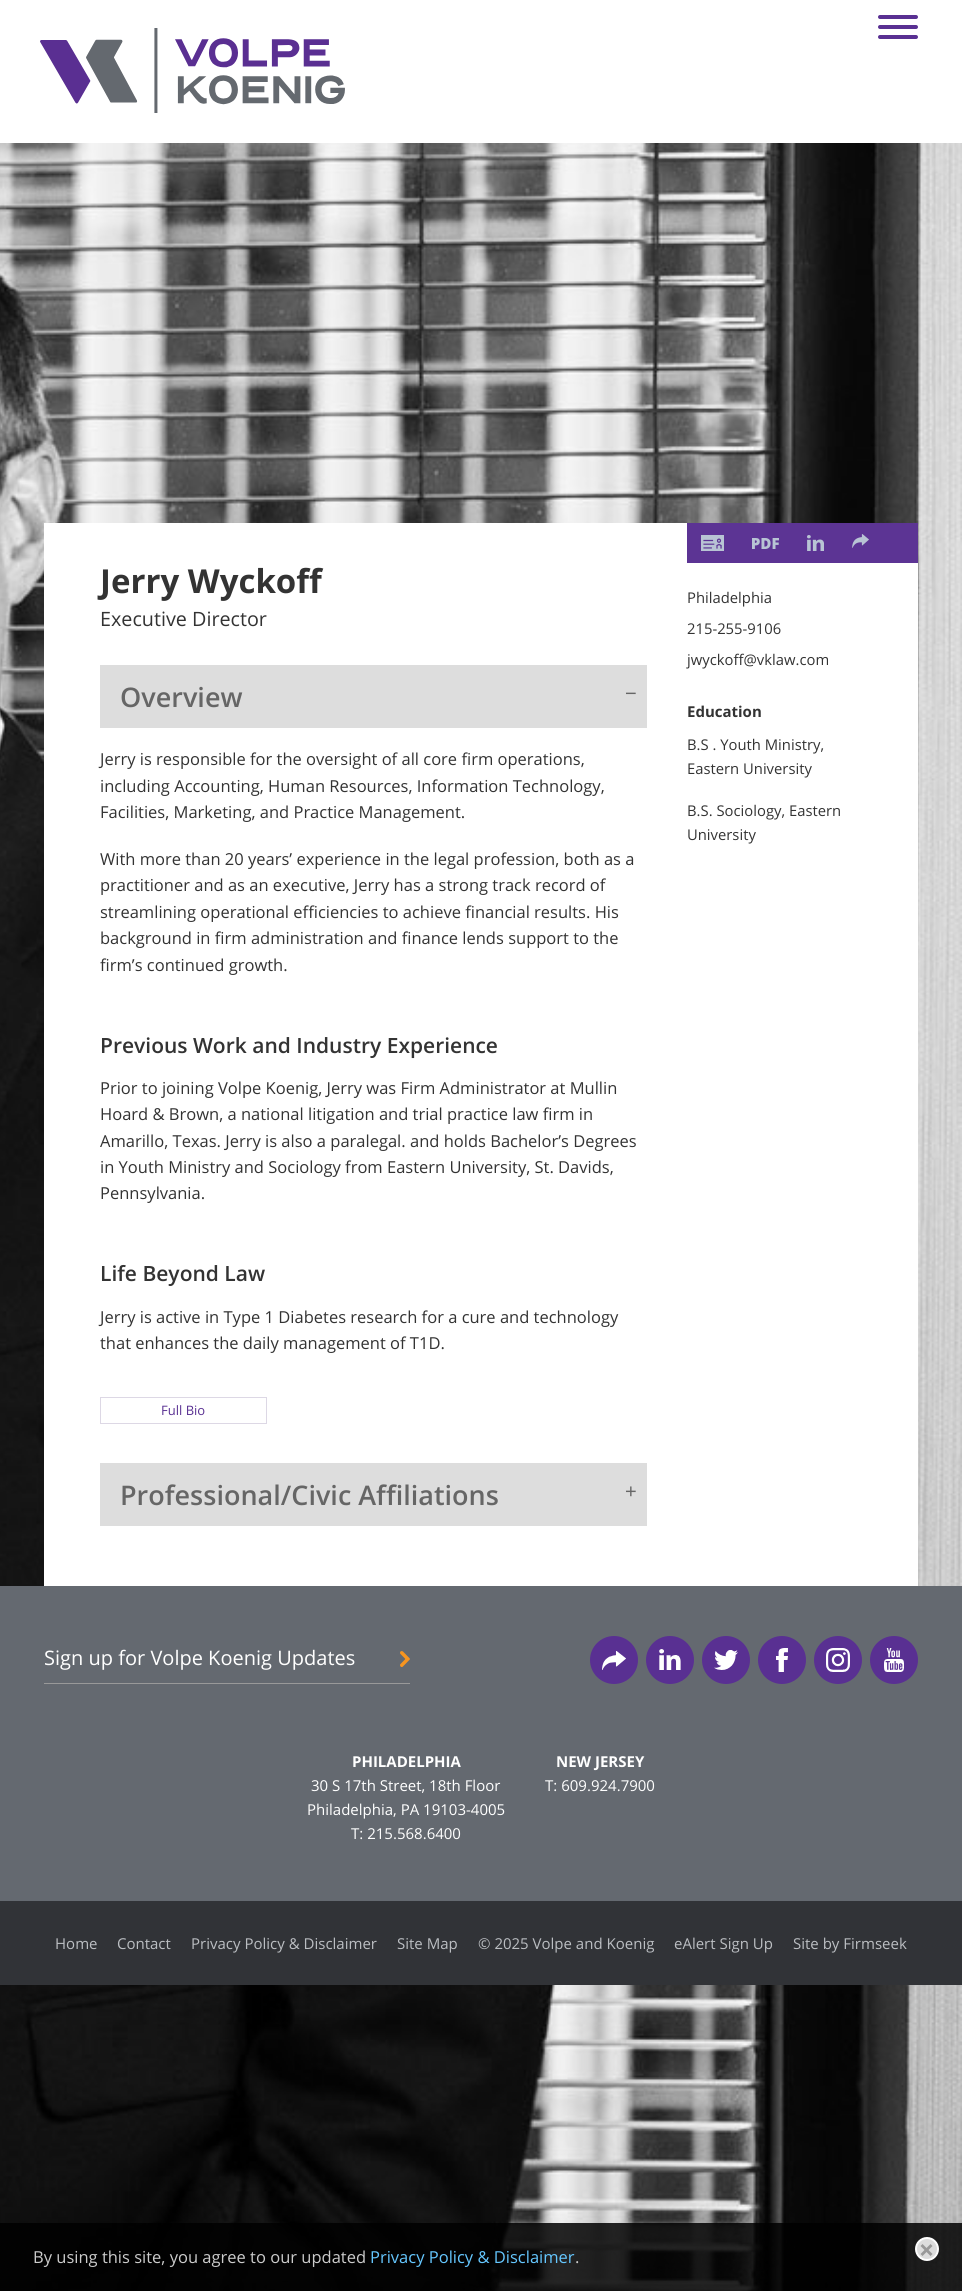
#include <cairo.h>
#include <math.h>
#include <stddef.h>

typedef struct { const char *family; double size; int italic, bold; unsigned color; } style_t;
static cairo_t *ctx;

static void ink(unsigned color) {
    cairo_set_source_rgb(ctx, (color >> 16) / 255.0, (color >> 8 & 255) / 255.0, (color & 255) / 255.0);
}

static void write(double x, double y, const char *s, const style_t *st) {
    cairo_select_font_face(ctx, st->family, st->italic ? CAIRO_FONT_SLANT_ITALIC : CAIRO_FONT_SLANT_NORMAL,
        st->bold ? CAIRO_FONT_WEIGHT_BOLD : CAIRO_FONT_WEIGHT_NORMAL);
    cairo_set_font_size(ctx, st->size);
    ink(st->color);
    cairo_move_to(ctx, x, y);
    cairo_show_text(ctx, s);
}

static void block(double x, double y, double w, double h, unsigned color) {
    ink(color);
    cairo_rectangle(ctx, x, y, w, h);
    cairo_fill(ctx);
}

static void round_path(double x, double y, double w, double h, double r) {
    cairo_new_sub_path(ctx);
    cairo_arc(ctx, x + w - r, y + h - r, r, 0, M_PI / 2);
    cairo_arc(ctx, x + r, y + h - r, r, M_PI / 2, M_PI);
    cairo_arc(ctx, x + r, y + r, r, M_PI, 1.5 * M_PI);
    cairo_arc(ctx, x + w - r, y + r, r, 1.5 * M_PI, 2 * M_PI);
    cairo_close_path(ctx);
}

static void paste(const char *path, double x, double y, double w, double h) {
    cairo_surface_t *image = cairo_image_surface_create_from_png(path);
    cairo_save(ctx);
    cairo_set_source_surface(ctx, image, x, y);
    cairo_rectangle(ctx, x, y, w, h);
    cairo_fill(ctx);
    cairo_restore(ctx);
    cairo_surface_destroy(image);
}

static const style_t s1 = {"Open Sans", 33, 0, 1, 0x333333};
static const style_t s2 = {"Open Sans", 19.75, 0, 0, 0x333333};
static const style_t s3 = {"Open Sans SemiBold", 27, 0, 0, 0x666666};
static const style_t s4 = {"Liberation Sans", 20, 0, 0, 0x666666};
static const style_t s5 = {"Open Sans", 16.5, 0, 0, 0x333333};
static const style_t s6 = {"Open Sans SemiBold", 21, 0, 0, 0x333333};
static const style_t s7 = {"Open Sans", 13, 0, 0, 0x593092};
static const style_t s8 = {"Open Sans", 14.8, 0, 0, 0x333333};
static const style_t s9 = {"Open Sans", 15, 0, 1, 0x333333};
static const style_t s10 = {"Open Sans", 20, 0, 0, 0xffffff};
static const style_t s11 = {"Open Sans", 15, 0, 1, 0xffffff};
static const style_t s12 = {"Open Sans", 15, 0, 0, 0xffffff};
static const style_t s13 = {"Open Sans", 15, 0, 0, 0xbbbec2};
static const style_t s14 = {"Open Sans", 16.5, 0, 0, 0xcccccc};
static const style_t s15 = {"Open Sans", 16.5, 0, 0, 0x65c7ff};

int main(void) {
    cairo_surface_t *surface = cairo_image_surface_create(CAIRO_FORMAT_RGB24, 962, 2291);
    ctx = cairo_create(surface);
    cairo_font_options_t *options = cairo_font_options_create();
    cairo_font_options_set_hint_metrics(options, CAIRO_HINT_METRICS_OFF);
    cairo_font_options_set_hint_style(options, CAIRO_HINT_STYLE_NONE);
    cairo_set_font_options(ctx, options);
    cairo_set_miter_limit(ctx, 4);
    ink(0xffffff);
    cairo_paint(ctx);
    paste("pic1.png", 40, 28, 305, 85);
    ink(0x593092);
    round_path(878, 25, 40, 4, 2);
    cairo_fill(ctx);
    round_path(878, 15, 40, 4, 2);
    cairo_fill(ctx);
    round_path(878, 35, 40, 4, 2);
    cairo_fill(ctx);
    paste("pic2.png", 0, 143, 962, 2148);
    block(44, 523, 874, 1063, 0xffffff);
    write(100, 593, "Jerry Wyckoff", &s1);
    write(100, 626, "Executive Director", &s2);
    block(100, 665, 547, 63, 0xdddddd);
    write(120, 707, "Overview", &s3);
    write(625, 700, "−", &s4);
    write(100, 765, "Jerry is responsible for the oversight of all core firm operations,", &s5);
    write(100, 792, "including Accounting, Human Resources, Information Technology,", &s5);
    write(100, 818, "Facilities, Marketing, and Practice Management.", &s5);
    write(100, 865, "With more than 20 years’ experience in the legal profession, both as a", &s5);
    write(100, 891, "practitioner and as an executive, Jerry has a strong track record of", &s5);
    write(100, 918, "streamlining operational efficiencies to achieve financial results. His", &s5);
    write(100, 944, "background in firm administration and finance lends support to the", &s5);
    write(100, 971, "firm’s continued growth.", &s5);
    write(100, 1053, "Previous Work and Industry Experience", &s6);
    write(100, 1094, "Prior to joining Volpe Koenig, Jerry was Firm Administrator at Mullin", &s5);
    write(100, 1120, "Hoard & Brown, a national litigation and trial practice law firm in", &s5);
    write(100, 1147, "Amarillo, Texas. Jerry is also a paralegal. and holds Bachelor’s Degrees", &s5);
    write(100, 1173, "in Youth Ministry and Sociology from Eastern University, St. Davids,", &s5);
    write(100, 1199, "Pennsylvania.", &s5);
    write(100, 1281, "Life Beyond Law", &s6);
    write(100, 1323, "Jerry is active in Type 1 Diabetes research for a cure and technology", &s5);
    write(100, 1349, "that enhances the daily management of T1D.", &s5);
    cairo_rectangle(ctx, 100.5, 1397.5, 166, 26);
    ink(0xddd8e5);
    cairo_set_line_width(ctx, 1);
    cairo_stroke(ctx);
    write(161, 1415, "Full Bio", &s7);
    block(100, 1463, 547, 63, 0xdddddd);
    write(120, 1505, "Professional/Civic Affiliations", &s3);
    write(625, 1498, "+", &s4);
    block(687, 523, 231, 40, 0x5c3494);
    paste("pic3.png", 701, 535, 23, 16);
    paste("pic4.png", 752, 538, 27, 11);
    paste("pic5.png", 807, 535, 17, 16);
    paste("pic6.png", 852, 534, 17, 14);
    write(687, 603, "Philadelphia", &s8);
    write(687, 634, "215-255-9106", &s8);
    write(687, 665, "jwyckoff@vklaw.com", &s8);
    write(687, 717, "Education", &s9);
    write(687, 750, "B.S . Youth Ministry,", &s8);
    write(687, 774, "Eastern University", &s8);
    write(687, 816, "B.S. Sociology, Eastern", &s8);
    write(687, 840, "University", &s8);
    block(0, 1586, 962, 315, 0x646970);
    block(44, 1683, 366, 1, 0x999999);
    write(44, 1665, "Sign up for Volpe Koenig Updates", &s10);
    paste("pic7.png", 400, 1651, 10, 16);
    ink(0x593092);
    cairo_arc(ctx, 614, 1660, 24, 0, 2 * M_PI);
    cairo_fill(ctx);
    paste("pic8.png", 602, 1651, 24, 19);
    cairo_arc(ctx, 670, 1660, 24, 0, 2 * M_PI);
    cairo_fill(ctx);
    paste("pic9.png", 659, 1649, 22, 21);
    cairo_arc(ctx, 726, 1660, 24, 0, 2 * M_PI);
    cairo_fill(ctx);
    paste("pic10.png", 714, 1650, 24, 20);
    cairo_arc(ctx, 782, 1660, 24, 0, 2 * M_PI);
    cairo_fill(ctx);
    paste("pic11.png", 776, 1648, 12, 24);
    cairo_arc(ctx, 838, 1660, 24, 0, 2 * M_PI);
    cairo_fill(ctx);
    paste("pic12.png", 826, 1648, 24, 24);
    cairo_arc(ctx, 894, 1660, 24, 0, 2 * M_PI);
    cairo_fill(ctx);
    paste("pic13.png", 884, 1648, 20, 24);
    write(352, 1767, "PHILADELPHIA", &s11);
    write(311, 1791, "30 S 17th Street, 18th Floor", &s12);
    write(307, 1815, "Philadelphia, PA 19103-4005", &s12);
    write(351, 1839, "T: 215.568.6400", &s12);
    write(556, 1767, "NEW JERSEY", &s11);
    write(545, 1791, "T: 609.924.7900", &s12);
    block(0, 1901, 962, 84, 0x313337);
    write(55, 1949, "Home", &s13);
    write(117, 1949, "Contact", &s13);
    write(191, 1949, "Privacy Policy & Disclaimer", &s13);
    write(397, 1949, "Site Map", &s13);
    write(478, 1949, "© 2025 Volpe and Koenig", &s13);
    write(674, 1949, "eAlert Sign Up", &s13);
    write(793, 1949, "Site by Firmseek", &s13);
    cairo_set_source_rgba(ctx, 0, 0, 0, 0.85);
    cairo_rectangle(ctx, 0, 2223, 962, 68);
    cairo_fill(ctx);
    write(33, 2263, "By using this site, you agree to our updated", &s14);
    write(370, 2263, "Privacy Policy & Disclaimer", &s15);
    write(575, 2263, ".", &s14);
    ink(0xdddddd);
    cairo_new_path(ctx);
    cairo_arc(ctx, 927, 2249, 11, 0, 2 * M_PI);
    cairo_fill_preserve(ctx);
    ink(0xffffff);
    cairo_set_line_width(ctx, 2);
    cairo_stroke(ctx);
    ink(0x999999);
    cairo_new_path(ctx);
    cairo_move_to(ctx, 920.5, 2254);
    cairo_line_to(ctx, 930.5, 2244);
    cairo_line_to(ctx, 932.5, 2246);
    cairo_line_to(ctx, 922.5, 2256);
    cairo_close_path(ctx);
    cairo_fill(ctx);
    cairo_new_path(ctx);
    cairo_move_to(ctx, 922.5, 2244);
    cairo_line_to(ctx, 932.5, 2254);
    cairo_line_to(ctx, 930.5, 2256);
    cairo_line_to(ctx, 920.5, 2246);
    cairo_close_path(ctx);
    cairo_fill(ctx);
    cairo_surface_write_to_png(surface, "screenshot.png");
    cairo_font_options_destroy(options);
    cairo_destroy(ctx);
    cairo_surface_destroy(surface);
    return 0;
}
